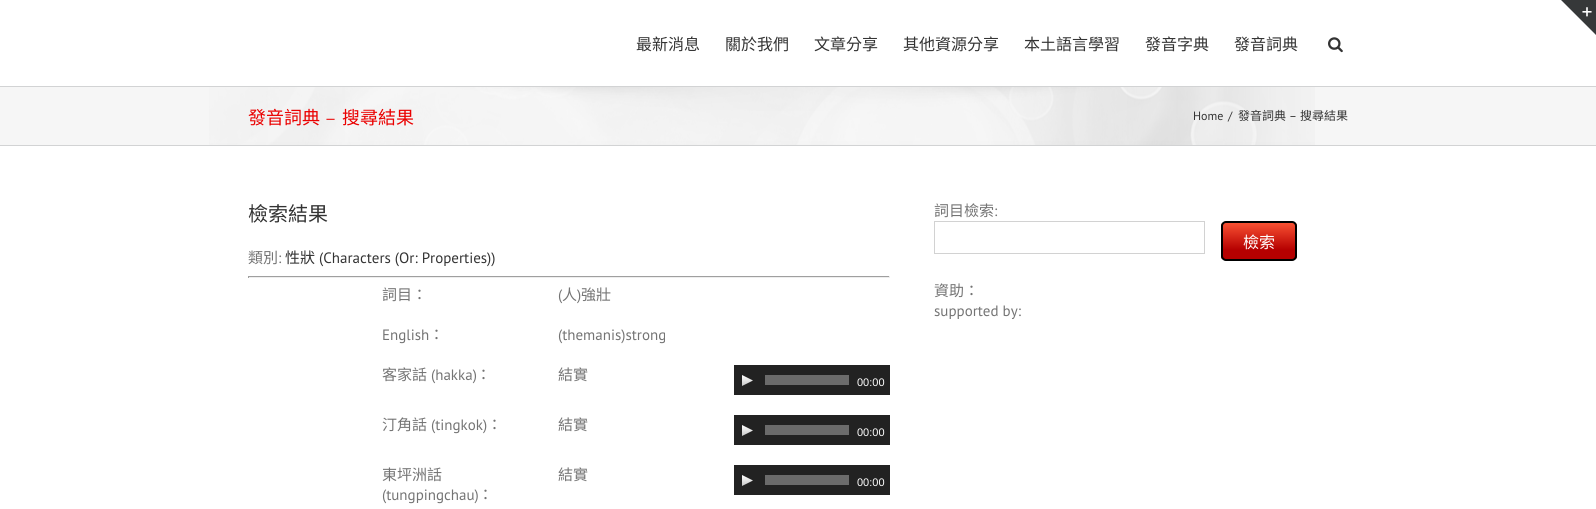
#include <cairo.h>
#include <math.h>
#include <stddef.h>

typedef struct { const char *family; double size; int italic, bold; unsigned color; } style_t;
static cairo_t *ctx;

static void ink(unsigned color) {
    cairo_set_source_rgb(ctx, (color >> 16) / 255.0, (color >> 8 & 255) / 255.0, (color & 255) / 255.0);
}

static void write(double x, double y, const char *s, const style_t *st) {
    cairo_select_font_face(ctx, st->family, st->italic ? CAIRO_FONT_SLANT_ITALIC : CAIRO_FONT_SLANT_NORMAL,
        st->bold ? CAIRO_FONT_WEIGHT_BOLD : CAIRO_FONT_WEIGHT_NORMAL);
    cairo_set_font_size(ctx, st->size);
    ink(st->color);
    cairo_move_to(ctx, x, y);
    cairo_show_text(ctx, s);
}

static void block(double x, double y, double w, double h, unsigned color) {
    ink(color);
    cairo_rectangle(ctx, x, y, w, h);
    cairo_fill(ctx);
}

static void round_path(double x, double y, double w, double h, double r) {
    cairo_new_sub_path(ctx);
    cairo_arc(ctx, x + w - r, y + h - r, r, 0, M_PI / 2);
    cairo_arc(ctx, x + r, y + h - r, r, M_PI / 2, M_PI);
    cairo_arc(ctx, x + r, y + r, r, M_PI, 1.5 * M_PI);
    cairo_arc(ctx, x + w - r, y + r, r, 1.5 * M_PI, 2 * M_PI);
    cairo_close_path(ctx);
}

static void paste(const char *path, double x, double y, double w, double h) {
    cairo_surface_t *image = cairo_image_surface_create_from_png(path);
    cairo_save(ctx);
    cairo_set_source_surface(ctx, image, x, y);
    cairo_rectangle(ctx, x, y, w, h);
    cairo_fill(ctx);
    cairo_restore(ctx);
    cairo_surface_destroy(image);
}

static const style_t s1 = {"Noto Sans CJK TC", 16, 0, 0, 0x333333};
static const style_t s2 = {"Noto Sans CJK TC", 18, 0, 0, 0xea0000};
static const style_t s3 = {"Antic Slab", 18, 0, 0, 0xea0000};
static const style_t s4 = {"PT Sans", 12, 0, 0, 0x333333};
static const style_t s5 = {"Noto Sans CJK TC", 12, 0, 0, 0x333333};
static const style_t s6 = {"Noto Sans CJK TC", 20, 0, 0, 0x333333};
static const style_t s7 = {"Noto Sans CJK TC", 15, 0, 0, 0x747474};
static const style_t s8 = {"PT Sans", 15, 0, 0, 0x747474};
static const style_t s9 = {"Noto Sans CJK TC", 15, 0, 0, 0x333333};
static const style_t s10 = {"PT Sans", 15, 0, 0, 0x333333};
static const style_t s11 = {"Liberation Sans", 11, 0, 0, 0xffffff};
static const style_t s12 = {"Noto Sans CJK TC", 16, 0, 0, 0xffffff};

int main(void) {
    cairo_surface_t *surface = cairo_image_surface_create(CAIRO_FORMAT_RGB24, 1596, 509);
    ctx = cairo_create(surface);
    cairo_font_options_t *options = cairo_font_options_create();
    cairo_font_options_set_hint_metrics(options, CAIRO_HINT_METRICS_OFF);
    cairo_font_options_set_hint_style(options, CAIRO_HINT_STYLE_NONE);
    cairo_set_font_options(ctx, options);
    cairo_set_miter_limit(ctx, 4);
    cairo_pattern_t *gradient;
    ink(0xffffff);
    cairo_paint(ctx);
    ink(0x363839);
    cairo_new_path(ctx);
    cairo_move_to(ctx, 1561, 0);
    cairo_line_to(ctx, 1596, 0);
    cairo_line_to(ctx, 1596, 35);
    cairo_close_path(ctx);
    cairo_fill(ctx);
    paste("pic1.png", 1582, 7, 10, 10);
    write(636, 50, "最新消息", &s1);
    write(725, 50, "關於我們", &s1);
    write(814, 50, "文章分享", &s1);
    write(903, 50, "其他資源分享", &s1);
    write(1024, 50, "本土語言學習", &s1);
    write(1145, 50, "發音字典", &s1);
    write(1234, 50, "發音詞典", &s1);
    paste("pic2.png", 1328, 37, 15, 16);
    block(0, 87, 1596, 58, 0xf6f6f6);
    paste("pic3.png", 209, 87, 1106, 58);
    block(0, 86, 1596, 1, 0xd2d3d4);
    block(0, 145, 1596, 1, 0xd2d3d4);
    write(248, 124, "發音詞典", &s2);
    write(325, 124, "–", &s3);
    write(342, 124, "搜尋結果", &s2);
    write(1193, 120, "Home", &s4);
    write(1228, 120, "/", &s4);
    write(1238, 120, "發音詞典", &s5);
    write(1289, 120, "–", &s4);
    write(1300, 120, "搜尋結果", &s5);
    write(248, 221, "檢索結果", &s6);
    write(248, 263, "類別", &s7);
    write(278, 263, ":", &s8);
    write(285, 263, "性狀", &s9);
    write(319, 263, "(Characters (Or: Properties))", &s10);
    block(248, 276, 642, 1, 0x9f9f9f);
    block(889, 276, 1, 2, 0xeeeeee);
    block(248, 277, 642, 1, 0xeeeeee);
    block(248, 276, 1, 2, 0x9f9f9f);
    write(382, 300, "詞目：", &s7);
    write(558, 300, "(", &s8);
    write(562, 300, "人", &s7);
    write(577, 300, ")", &s8);
    write(581, 300, "強壯", &s7);
    write(382, 340, "English", &s8);
    write(429, 340, "：", &s7);
    write(558, 340, "(themanis)strong", &s8);
    write(382, 380, "客家話", &s7);
    write(431, 380, "(hakka)", &s8);
    write(476, 380, "：", &s7);
    write(558, 380, "結實", &s7);
    block(734, 365, 156, 30, 0x222222);
    paste("pic4.png", 742, 375, 11, 11);
    block(765, 375, 84, 10, 0x6b6b6b);
    write(857, 386, "00:00", &s11);
    write(382, 430, "汀角話", &s7);
    write(431, 430, "(tingkok)", &s8);
    write(487, 430, "：", &s7);
    write(558, 430, "結實", &s7);
    block(734, 415, 156, 30, 0x222222);
    paste("pic4.png", 742, 425, 11, 11);
    block(765, 425, 84, 10, 0x6b6b6b);
    write(857, 436, "00:00", &s11);
    write(382, 480, "東坪洲話", &s7);
    write(382, 500, "(tungpingchau)", &s8);
    write(478, 500, "：", &s7);
    write(558, 480, "結實", &s7);
    block(734, 465, 156, 30, 0x222222);
    paste("pic4.png", 742, 475, 11, 11);
    block(765, 475, 84, 10, 0x6b6b6b);
    write(857, 486, "00:00", &s11);
    write(934, 216, "詞目檢索", &s7);
    write(994, 216, ":", &s8);
    cairo_rectangle(ctx, 934.5, 221.5, 270, 32);
    ink(0xd2d2d2);
    cairo_set_line_width(ctx, 1);
    cairo_stroke(ctx);
    cairo_save(ctx);
    round_path(1221, 221, 76, 40, 5);
    cairo_clip(ctx);
    gradient = cairo_pattern_create_linear(1259, 223, 1259, 259);
    cairo_pattern_add_color_stop_rgba(gradient, 0, 0.973, 0.314, 0.196, 1);
    cairo_pattern_add_color_stop_rgba(gradient, 0.75, 0.71, 0, 0, 1);
    cairo_pattern_add_color_stop_rgba(gradient, 1, 0.71, 0, 0, 1);
    cairo_set_source(ctx, gradient);
    cairo_pattern_destroy(gradient);
    cairo_rectangle(ctx, 1221, 223, 76, 36);
    cairo_fill(ctx);
    cairo_restore(ctx);
    round_path(1222, 222, 74, 38, 4);
    ink(0x000000);
    cairo_set_line_width(ctx, 2);
    cairo_stroke(ctx);
    write(1243, 248, "檢索", &s12);
    write(934, 296, "資助：", &s7);
    write(934, 316, "supported by:", &s8);
    cairo_surface_write_to_png(surface, "screenshot.png");
    cairo_font_options_destroy(options);
    cairo_destroy(ctx);
    cairo_surface_destroy(surface);
    return 0;
}
